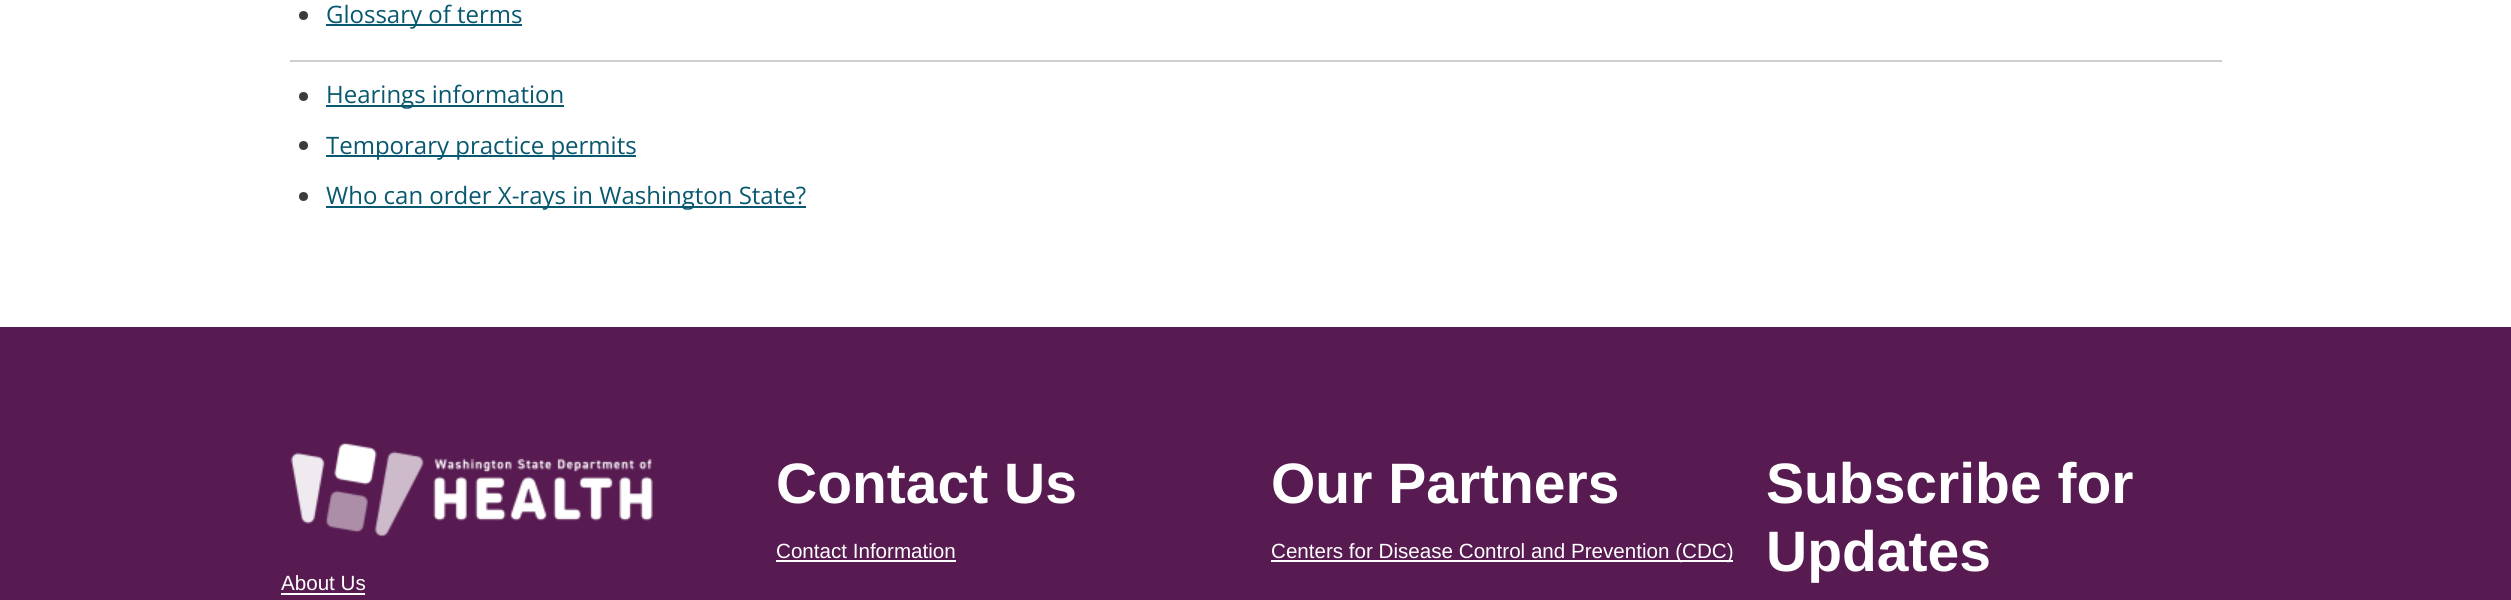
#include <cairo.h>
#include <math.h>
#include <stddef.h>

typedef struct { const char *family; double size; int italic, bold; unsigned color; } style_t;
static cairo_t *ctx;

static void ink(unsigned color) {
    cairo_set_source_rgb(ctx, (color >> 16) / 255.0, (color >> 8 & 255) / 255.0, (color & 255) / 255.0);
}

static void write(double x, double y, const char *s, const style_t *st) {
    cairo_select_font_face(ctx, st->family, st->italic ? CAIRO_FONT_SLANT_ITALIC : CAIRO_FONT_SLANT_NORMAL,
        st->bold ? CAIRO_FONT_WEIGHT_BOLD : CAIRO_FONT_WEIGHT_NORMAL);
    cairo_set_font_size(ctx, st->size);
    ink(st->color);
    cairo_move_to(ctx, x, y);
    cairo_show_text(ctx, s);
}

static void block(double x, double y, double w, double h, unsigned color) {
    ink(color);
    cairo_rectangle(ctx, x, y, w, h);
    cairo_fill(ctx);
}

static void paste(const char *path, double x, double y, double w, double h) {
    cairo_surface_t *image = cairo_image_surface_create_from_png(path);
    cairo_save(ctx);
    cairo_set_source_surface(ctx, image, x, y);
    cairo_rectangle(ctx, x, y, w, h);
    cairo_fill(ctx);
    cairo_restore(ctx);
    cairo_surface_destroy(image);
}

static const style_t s1 = {"Open Sans", 24, 0, 0, 0x08586f};
static const style_t s2 = {"Liberation Sans", 57, 0, 1, 0xffffff};
static const style_t s3 = {"Liberation Sans", 20.6, 0, 0, 0xffffff};

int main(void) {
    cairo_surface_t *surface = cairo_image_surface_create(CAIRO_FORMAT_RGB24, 2511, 600);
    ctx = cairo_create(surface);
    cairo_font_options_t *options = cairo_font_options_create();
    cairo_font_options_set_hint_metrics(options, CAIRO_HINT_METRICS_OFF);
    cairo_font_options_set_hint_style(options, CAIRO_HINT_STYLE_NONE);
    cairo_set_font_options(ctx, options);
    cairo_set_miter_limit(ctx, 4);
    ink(0xffffff);
    cairo_paint(ctx);
    ink(0x3b3b3b);
    cairo_arc(ctx, 303.5, 15.5, 4.5, 0, 2 * M_PI);
    cairo_fill(ctx);
    block(326, 24, 196, 2, 0x08586f);
    write(326, 23, "Glossary of terms", &s1);
    block(290, 60, 1932, 2, 0xcecece);
    ink(0x3b3b3b);
    cairo_new_path(ctx);
    cairo_arc(ctx, 303.5, 96.5, 4.5, 0, 2 * M_PI);
    cairo_fill(ctx);
    block(326, 105, 238, 2, 0x08586f);
    write(326, 103, "Hearings information", &s1);
    ink(0x3b3b3b);
    cairo_new_path(ctx);
    cairo_arc(ctx, 303.5, 145.5, 4.5, 0, 2 * M_PI);
    cairo_fill(ctx);
    block(326, 155, 310, 2, 0x08586f);
    write(326, 154, "Temporary practice permits", &s1);
    ink(0x3b3b3b);
    cairo_new_path(ctx);
    cairo_arc(ctx, 303.5, 196.5, 4.5, 0, 2 * M_PI);
    cairo_fill(ctx);
    block(326, 206, 480, 2, 0x08586f);
    write(326, 204, "Who can order X-rays in Washington State?", &s1);
    block(0, 327, 2511, 273, 0x581b51);
    write(776, 503, "Contact Us", &s2);
    write(776, 558, "Contact Information", &s3);
    block(776, 560, 180, 2, 0xffffff);
    write(1271, 503, "Our Partners", &s2);
    block(1271, 560, 462, 2, 0xffffff);
    write(1271, 558, "Centers for Disease Control and Prevention (CDC)", &s3);
    write(1766, 503, "Subscribe for", &s2);
    write(1766, 571, "Updates", &s2);
    paste("pic1.png", 290, 442, 363, 95);
    write(281, 590, "About Us", &s3);
    block(281, 593, 84, 2, 0xffffff);
    cairo_surface_write_to_png(surface, "screenshot.png");
    cairo_font_options_destroy(options);
    cairo_destroy(ctx);
    cairo_surface_destroy(surface);
    return 0;
}
